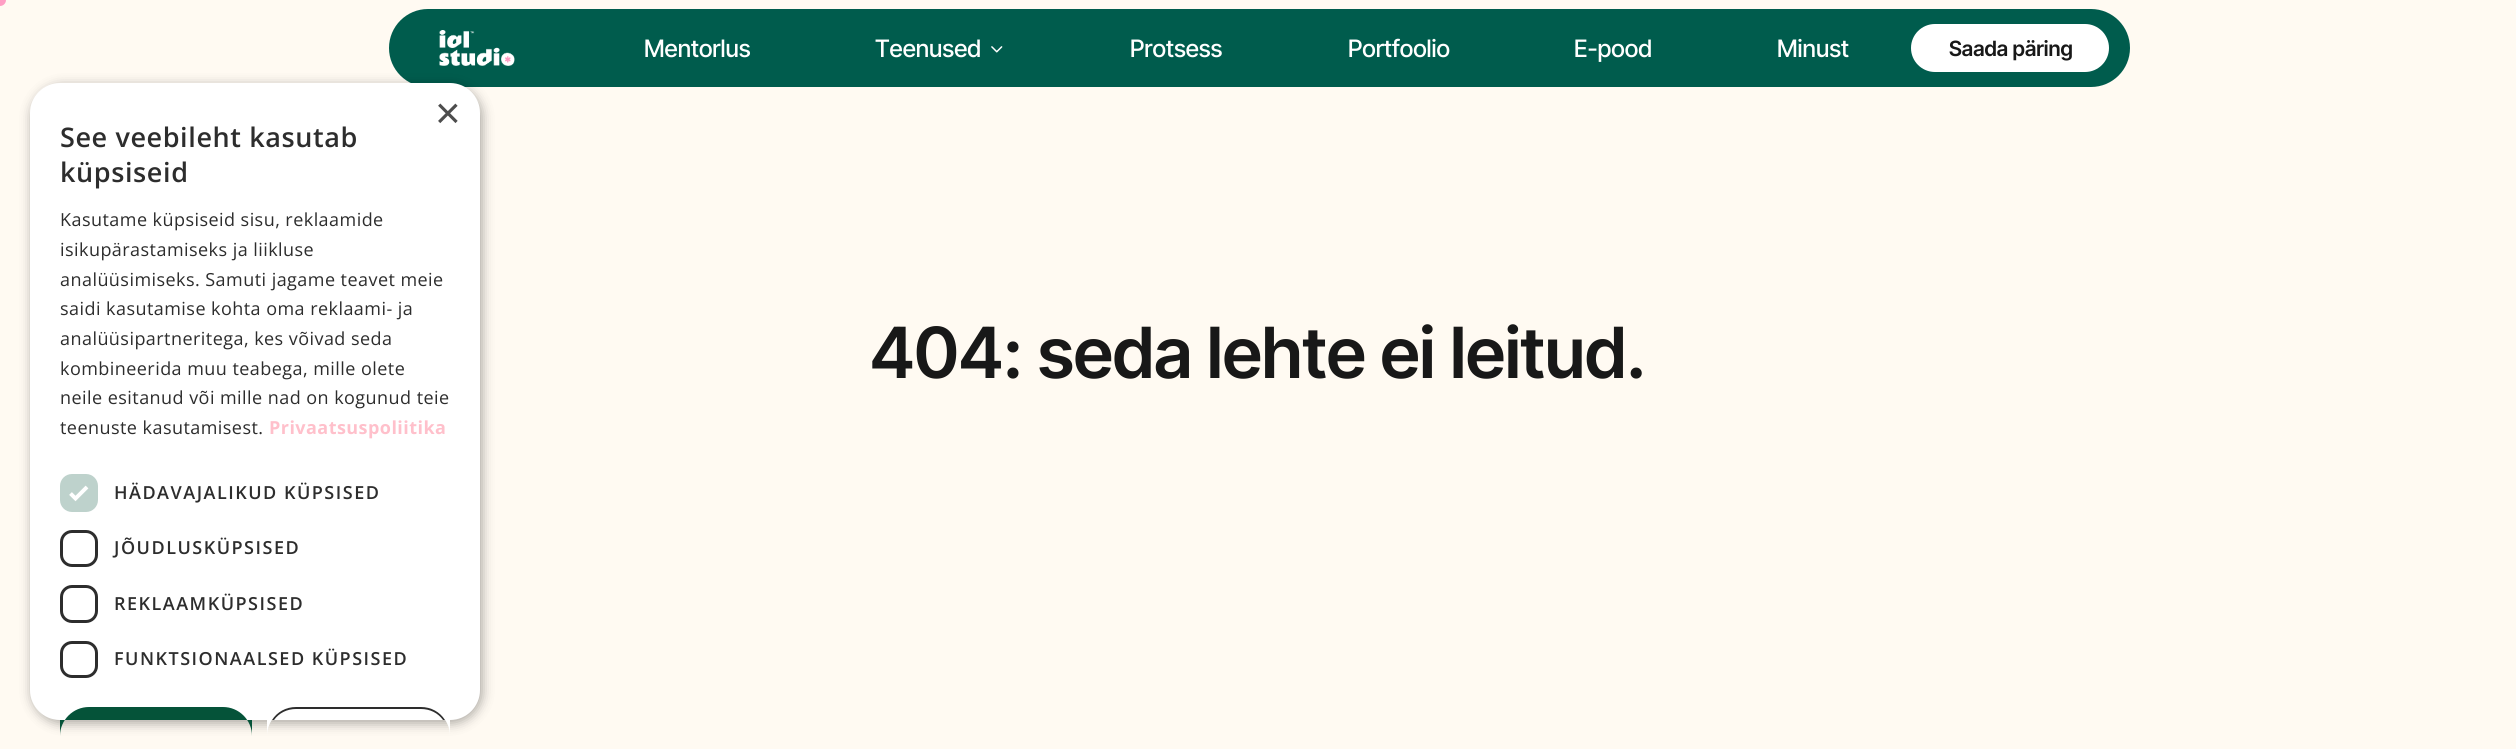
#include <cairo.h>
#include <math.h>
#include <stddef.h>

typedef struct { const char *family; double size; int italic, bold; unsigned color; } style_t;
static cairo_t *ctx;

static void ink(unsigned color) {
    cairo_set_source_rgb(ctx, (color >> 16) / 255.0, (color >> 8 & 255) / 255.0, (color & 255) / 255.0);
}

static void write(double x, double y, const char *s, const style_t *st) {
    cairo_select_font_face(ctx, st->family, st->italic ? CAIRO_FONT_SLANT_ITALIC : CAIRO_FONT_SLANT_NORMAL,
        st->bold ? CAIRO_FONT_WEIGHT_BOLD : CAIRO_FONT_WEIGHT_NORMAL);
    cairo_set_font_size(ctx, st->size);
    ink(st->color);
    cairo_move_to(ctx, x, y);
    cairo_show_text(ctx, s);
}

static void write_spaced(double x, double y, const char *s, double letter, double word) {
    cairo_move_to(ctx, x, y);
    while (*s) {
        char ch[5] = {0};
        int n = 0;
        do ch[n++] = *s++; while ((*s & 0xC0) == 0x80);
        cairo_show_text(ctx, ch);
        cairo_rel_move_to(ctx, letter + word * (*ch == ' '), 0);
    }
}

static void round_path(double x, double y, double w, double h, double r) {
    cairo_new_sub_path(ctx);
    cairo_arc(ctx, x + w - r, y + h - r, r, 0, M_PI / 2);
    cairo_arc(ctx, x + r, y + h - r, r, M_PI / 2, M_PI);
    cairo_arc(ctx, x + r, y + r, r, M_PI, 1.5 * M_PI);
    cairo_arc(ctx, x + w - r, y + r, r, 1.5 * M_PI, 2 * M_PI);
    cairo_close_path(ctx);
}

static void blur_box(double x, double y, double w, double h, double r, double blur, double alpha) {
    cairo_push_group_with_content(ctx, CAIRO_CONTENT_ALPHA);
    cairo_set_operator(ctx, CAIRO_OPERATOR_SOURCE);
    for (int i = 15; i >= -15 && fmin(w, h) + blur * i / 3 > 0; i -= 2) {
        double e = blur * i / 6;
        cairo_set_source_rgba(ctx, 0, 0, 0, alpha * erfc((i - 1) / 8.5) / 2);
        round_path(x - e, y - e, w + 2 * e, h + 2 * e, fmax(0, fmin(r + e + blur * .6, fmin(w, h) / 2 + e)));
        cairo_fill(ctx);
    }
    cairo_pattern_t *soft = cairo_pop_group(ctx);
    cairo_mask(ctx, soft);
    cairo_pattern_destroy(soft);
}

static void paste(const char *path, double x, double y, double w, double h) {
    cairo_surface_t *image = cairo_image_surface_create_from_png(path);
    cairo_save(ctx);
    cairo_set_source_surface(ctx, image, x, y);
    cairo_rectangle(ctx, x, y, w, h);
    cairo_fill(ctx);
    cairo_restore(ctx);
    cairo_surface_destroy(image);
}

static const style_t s1 = {"Liberation Sans", 44, 0, 0, 0x4d4d4d};
static const style_t s2 = {"Inter Tight Medium", 24, 0, 0, 0xffffff};
static const style_t s3 = {"Inter Tight SemiBold", 21, 0, 0, 0x181818};
static const style_t s4 = {"Inter Tight SemiBold", 70.5, 0, 0, 0x181818};

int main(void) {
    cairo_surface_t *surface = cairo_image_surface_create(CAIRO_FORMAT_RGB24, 2516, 749);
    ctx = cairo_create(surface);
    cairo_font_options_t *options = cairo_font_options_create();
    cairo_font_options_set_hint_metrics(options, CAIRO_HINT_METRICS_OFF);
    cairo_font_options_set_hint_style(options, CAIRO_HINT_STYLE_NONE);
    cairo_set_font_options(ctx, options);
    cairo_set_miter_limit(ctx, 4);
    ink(0xfffaf2);
    cairo_paint(ctx);
    ink(0xff9ec4);
    cairo_arc(ctx, 0, 0, 6, 0, 2 * M_PI);
    cairo_fill(ctx);
    ink(0x005c4d);
    round_path(389, 9, 1741, 78, 39);
    cairo_fill(ctx);
    ink(0x000000);
    blur_box(32, 86, 450, 637, 30, 6, 0.35);
    ink(0xffffff);
    round_path(30, 83, 450, 637, 30);
    cairo_fill(ctx);
    write(435, 128, "×", &s1);
    cairo_select_font_face(ctx, "Open Sans SemiBold", CAIRO_FONT_SLANT_NORMAL, CAIRO_FONT_WEIGHT_NORMAL);
    cairo_set_font_size(ctx, 27);
    ink(0x2d2d2d);
    write_spaced(60, 147, "See veebileht kasutab", 0.6, 0);
    write_spaced(60, 182, "küpsiseid", 0.6, 0);
    cairo_select_font_face(ctx, "Open Sans", CAIRO_FONT_SLANT_NORMAL, CAIRO_FONT_WEIGHT_NORMAL);
    cairo_set_font_size(ctx, 18);
    write_spaced(60, 226, "Kasutame küpsiseid sisu, reklaamide", 0.45, 0);
    write_spaced(60, 256, "isikupärastamiseks ja liikluse", 0.45, 0);
    write_spaced(60, 286, "analüüsimiseks. Samuti jagame teavet meie", 0.45, 0);
    write_spaced(60, 315, "saidi kasutamise kohta oma reklaami- ja", 0.45, 0);
    write_spaced(60, 345, "analüüsipartneritega, kes võivad seda", 0.45, 0);
    write_spaced(60, 375, "kombineerida muu teabega, mille olete", 0.45, 0);
    write_spaced(60, 404, "neile esitanud või mille nad on kogunud teie", 0.45, 0);
    write_spaced(60, 434, "teenuste kasutamisest.", 0.45, 0);
    cairo_select_font_face(ctx, "Open Sans", CAIRO_FONT_SLANT_NORMAL, CAIRO_FONT_WEIGHT_BOLD);
    ink(0xffc0cb);
    write_spaced(269, 434, "Privaatsuspoliitika", 0.45, 0);
    ink(0xbed2cc);
    round_path(60, 474, 38, 38, 12);
    cairo_fill(ctx);
    cairo_new_path(ctx);
    cairo_move_to(ctx, 70.5, 493.5);
    cairo_line_to(ctx, 75.5, 498.5);
    cairo_line_to(ctx, 87, 487);
    ink(0xffffff);
    cairo_set_line_width(ctx, 3.9);
    cairo_stroke(ctx);
    cairo_select_font_face(ctx, "Open Sans SemiBold", CAIRO_FONT_SLANT_NORMAL, CAIRO_FONT_WEIGHT_NORMAL);
    ink(0x2d2d2d);
    write_spaced(114, 499, "HÄDAVAJALIKUD KÜPSISED", 1.5, 0);
    round_path(61.5, 531.5, 35, 34, 10.5);
    cairo_set_line_width(ctx, 3);
    cairo_stroke(ctx);
    write_spaced(114, 554, "JÕUDLUSKÜPSISED", 1.5, 0);
    round_path(61.5, 586.5, 35, 35, 10.5);
    cairo_stroke(ctx);
    write_spaced(114, 610, "REKLAAMKÜPSISED", 1.5, 0);
    round_path(61.5, 642.5, 35, 34, 10.5);
    cairo_stroke(ctx);
    write_spaced(114, 665, "FUNKTSIONAALSED KÜPSISED", 1.5, 0);
    ink(0x055339);
    cairo_new_path(ctx);
    cairo_move_to(ctx, 89, 707);
    cairo_line_to(ctx, 223, 707);
    cairo_curve_to(ctx, 239, 707, 252, 720, 252, 736);
    cairo_line_to(ctx, 252, 720);
    cairo_line_to(ctx, 60, 720);
    cairo_line_to(ctx, 60, 736);
    cairo_curve_to(ctx, 60, 720, 73, 707, 89, 707);
    cairo_close_path(ctx);
    cairo_fill(ctx);
    ink(0xffffff);
    cairo_new_path(ctx);
    cairo_move_to(ctx, 296, 707);
    cairo_line_to(ctx, 421, 707);
    cairo_curve_to(ctx, 437, 707, 450, 720, 450, 736);
    cairo_line_to(ctx, 450, 720);
    cairo_line_to(ctx, 267, 720);
    cairo_line_to(ctx, 267, 736);
    cairo_curve_to(ctx, 267, 720, 280, 707, 296, 707);
    cairo_close_path(ctx);
    cairo_fill(ctx);
    ink(0x2d2d2d);
    cairo_new_path(ctx);
    cairo_move_to(ctx, 296, 707);
    cairo_curve_to(ctx, 286, 707, 277, 712, 272, 720);
    cairo_line_to(ctx, 274, 720);
    cairo_curve_to(ctx, 279, 713, 287, 709, 296, 709);
    cairo_line_to(ctx, 421, 709);
    cairo_curve_to(ctx, 430, 709, 438, 713, 443, 720);
    cairo_line_to(ctx, 445, 720);
    cairo_curve_to(ctx, 440, 712, 431, 707, 421, 707);
    cairo_close_path(ctx);
    cairo_fill(ctx);
    paste("pic1.png", 439, 30, 76, 36);
    write(644, 57, "Mentorlus", &s2);
    write(875, 57, "Teenused", &s2);
    paste("pic2.png", 991, 46, 12, 7);
    write(1130, 57, "Protsess", &s2);
    write(1348, 57, "Portfoolio", &s2);
    write(1574, 57, "E-pood", &s2);
    write(1777, 57, "Minust", &s2);
    round_path(1911, 24, 198, 48, 24);
    cairo_fill(ctx);
    write(1949, 56, "Saada päring", &s3);
    write(870, 378, "404: seda lehte ei leitud.", &s4);
    cairo_surface_write_to_png(surface, "screenshot.png");
    cairo_font_options_destroy(options);
    cairo_destroy(ctx);
    cairo_surface_destroy(surface);
    return 0;
}
